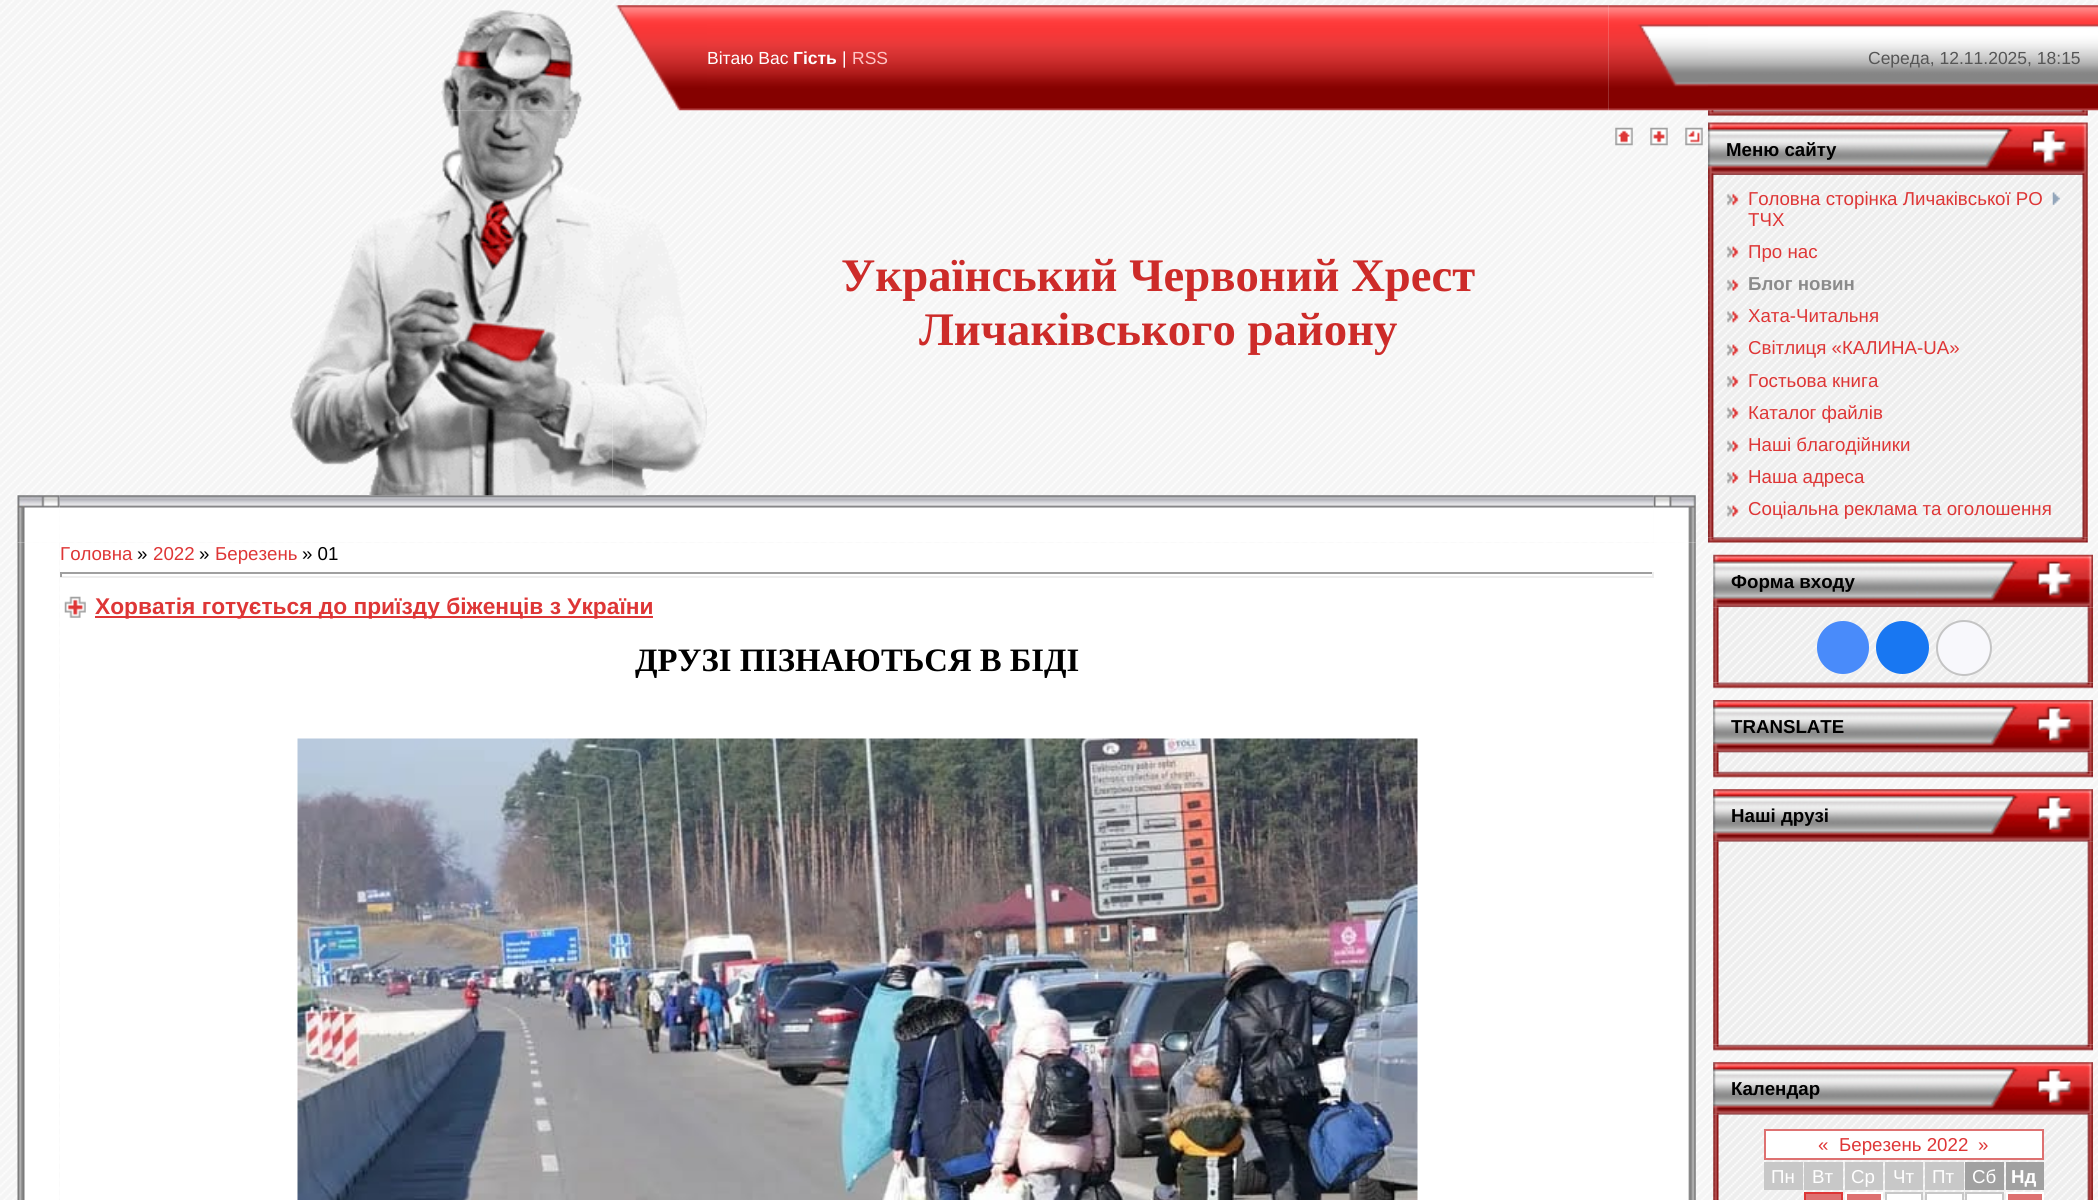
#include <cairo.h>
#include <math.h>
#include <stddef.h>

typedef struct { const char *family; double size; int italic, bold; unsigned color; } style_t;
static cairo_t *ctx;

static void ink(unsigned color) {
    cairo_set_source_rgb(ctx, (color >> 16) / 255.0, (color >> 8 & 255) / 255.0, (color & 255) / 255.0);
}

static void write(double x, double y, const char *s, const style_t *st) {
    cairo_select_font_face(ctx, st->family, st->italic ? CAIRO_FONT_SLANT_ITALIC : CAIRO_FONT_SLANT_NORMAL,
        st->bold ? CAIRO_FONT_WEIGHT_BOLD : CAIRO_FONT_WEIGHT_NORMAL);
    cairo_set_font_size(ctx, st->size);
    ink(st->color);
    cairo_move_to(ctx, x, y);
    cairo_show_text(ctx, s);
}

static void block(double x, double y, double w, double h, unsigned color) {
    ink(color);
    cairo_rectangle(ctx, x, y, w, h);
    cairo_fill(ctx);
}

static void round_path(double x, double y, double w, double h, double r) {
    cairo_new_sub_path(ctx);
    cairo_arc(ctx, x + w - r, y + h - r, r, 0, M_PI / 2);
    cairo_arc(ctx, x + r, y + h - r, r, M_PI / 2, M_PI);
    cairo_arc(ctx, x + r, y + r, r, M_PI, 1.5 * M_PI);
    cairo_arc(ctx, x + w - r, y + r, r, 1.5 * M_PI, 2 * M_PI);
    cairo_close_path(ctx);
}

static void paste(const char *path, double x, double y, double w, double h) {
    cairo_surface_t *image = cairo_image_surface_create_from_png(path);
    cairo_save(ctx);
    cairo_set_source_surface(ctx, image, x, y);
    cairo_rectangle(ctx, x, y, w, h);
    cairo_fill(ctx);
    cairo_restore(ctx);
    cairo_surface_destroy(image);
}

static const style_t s1 = {"Liberation Sans", 17.5, 0, 0, 0xffffff};
static const style_t s2 = {"Liberation Sans", 17.5, 0, 1, 0xffffff};
static const style_t s3 = {"Liberation Sans", 17.5, 0, 0, 0xffc5c5};
static const style_t s4 = {"Liberation Serif", 46.7, 0, 1, 0xcd2b29};
static const style_t s5 = {"Liberation Sans", 18.7, 0, 0, 0xde3636};
static const style_t s6 = {"Liberation Sans", 18.7, 0, 0, 0x000000};
static const style_t s7 = {"Liberation Sans", 22.75, 0, 1, 0xde3636};
static const style_t s8 = {"Liberation Serif", 32.7, 0, 1, 0x000000};
static const style_t s9 = {"Liberation Sans", 17.5, 0, 0, 0x555555};
static const style_t s10 = {"Liberation Sans", 18.7, 0, 1, 0x000000};
static const style_t s11 = {"Liberation Sans", 18.7, 0, 1, 0x8b8b8b};
static const style_t s12 = {"Liberation Sans", 18.7, 0, 0, 0xffffff};
static const style_t s13 = {"Liberation Sans", 18.7, 0, 1, 0xffffff};

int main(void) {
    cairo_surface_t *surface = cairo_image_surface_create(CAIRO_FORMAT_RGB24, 2098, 1200);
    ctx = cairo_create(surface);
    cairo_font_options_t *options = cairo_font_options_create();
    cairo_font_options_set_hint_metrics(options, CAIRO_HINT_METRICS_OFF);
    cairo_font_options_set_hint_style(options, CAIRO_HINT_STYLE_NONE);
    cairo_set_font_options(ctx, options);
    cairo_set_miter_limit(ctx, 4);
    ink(0xffffff);
    cairo_paint(ctx);
    paste("pic1.png", 0, 0, 2098, 1200);
    paste("pic2.png", 441, 10, 141, 101);
    paste("pic3.png", 615, 5, 92, 106);
    paste("pic4.png", 707, 5, 902, 106);
    write(707, 64, "Вітаю Вас", &s1);
    write(793, 64, "Гість", &s2);
    write(842, 64, "|", &s1);
    write(852, 64, "RSS", &s3);
    paste("pic5.png", 1608, 5, 100, 106);
    paste("pic12.png", 59, 495, 1595, 48);
    paste("pic6.png", 290, 110, 323, 386);
    paste("pic7.png", 1615, 127, 18, 19);
    paste("pic8.png", 1650, 127, 18, 19);
    paste("pic9.png", 1685, 127, 18, 19);
    paste("pic10.png", 612, 205, 95, 291);
    write(841, 291, "Український Червоний Хрест", &s4);
    write(919, 345, "Личаківського району", &s4);
    paste("pic14.png", 17, 542, 43, 658);
    paste("pic11.png", 17, 495, 43, 48);
    paste("pic17.png", 1654, 542, 42, 658);
    paste("pic13.png", 1653, 495, 43, 48);
    block(60, 543, 1594, 657, 0xffffff);
    write(60, 560, "Головна", &s5);
    write(137, 560, "»", &s6);
    write(153, 560, "2022", &s5);
    write(199, 560, "»", &s6);
    write(215, 560, "Березень", &s5);
    write(302, 560, "» 01", &s6);
    block(60, 572, 1594, 2, 0x9f9f9f);
    block(1652, 572, 2, 5, 0xeeeeee);
    block(60, 576, 1594, 2, 0xeeeeee);
    block(60, 572, 2, 5, 0x9f9f9f);
    paste("pic15.png", 64, 596, 22, 22);
    block(95, 616, 558, 2, 0xde3636);
    write(95, 614, "Хорватія готується до приїзду біженців з України", &s7);
    write(635, 671, "ДРУЗІ ПІЗНАЮТЬСЯ В БІДІ", &s8);
    paste("pic16.png", 297, 738, 1121, 462);
    paste("pic18.png", 1708, 5, 390, 106);
    write(1868, 64, "Середа, 12.11.2025, 18:15", &s9);
    paste("pic19.png", 1708, 110, 380, 6);
    paste("pic20.png", 1708, 122, 380, 53);
    write(1726, 156, "Меню сайту", &s10);
    paste("pic21.png", 1708, 175, 380, 363);
    paste("pic22.png", 1726, 193, 13, 13);
    write(1748, 205, "Головна сторінка Личаківської РО", &s5);
    paste("pic23.png", 2052, 192, 8, 13);
    write(1748, 226, "ТЧХ", &s5);
    paste("pic24.png", 1726, 246, 13, 12);
    write(1748, 258, "Про нас", &s5);
    paste("pic25.png", 1726, 279, 13, 12);
    write(1748, 290, "Блог новин", &s11);
    paste("pic26.png", 1727, 311, 12, 12);
    write(1748, 322, "Хата-Читальня", &s5);
    paste("pic27.png", 1726, 344, 13, 12);
    write(1748, 354, "Світлиця «КАЛИНА-UA»", &s5);
    paste("pic28.png", 1726, 375, 13, 13);
    write(1748, 387, "Гостьова книга", &s5);
    paste("pic29.png", 1726, 407, 13, 12);
    write(1748, 419, "Каталог файлів", &s5);
    paste("pic30.png", 1727, 440, 12, 12);
    write(1748, 451, "Наші благодійники", &s5);
    paste("pic31.png", 1726, 472, 13, 12);
    write(1748, 483, "Наша адреса", &s5);
    paste("pic32.png", 1726, 505, 13, 12);
    write(1748, 515, "Соціальна реклама та оголошення", &s5);
    paste("pic33.png", 1708, 537, 380, 6);
    paste("pic34.png", 1713, 554, 380, 54);
    write(1731, 588, "Форма входу", &s10);
    paste("pic35.png", 1713, 607, 380, 76);
    ink(0x498bfa);
    round_path(1817, 621, 52, 53, 26);
    cairo_fill(ctx);
    ink(0x1877f2);
    cairo_arc(ctx, 1902.5, 647.5, 26.5, 0, 2 * M_PI);
    cairo_fill(ctx);
    ink(0xf8f8fc);
    cairo_arc(ctx, 1964, 648, 27, 0, 2 * M_PI);
    cairo_fill_preserve(ctx);
    ink(0xc4c4c4);
    cairo_stroke(ctx);
    paste("pic36.png", 1713, 682, 380, 7);
    block(1713, 700, 380, 53, 0xbfbfbf);
    paste("pic37.png", 1713, 700, 380, 53);
    write(1731, 733, "TRANSLATE", &s10);
    paste("pic38.png", 1713, 752, 380, 20);
    paste("pic39.png", 1713, 771, 380, 7);
    block(1713, 789, 380, 53, 0xbfbfbf);
    paste("pic40.png", 1713, 789, 380, 53);
    write(1731, 822, "Наші друзі", &s10);
    paste("pic41.png", 1713, 841, 380, 204);
    paste("pic42.png", 1713, 1044, 380, 7);
    block(1713, 1062, 380, 53, 0xbfbfbf);
    paste("pic40.png", 1713, 1062, 380, 53);
    write(1731, 1095, "Календар", &s10);
    paste("pic43.png", 1713, 1114, 380, 86);
    ink(0xffffff);
    cairo_rectangle(ctx, 1765, 1130, 278, 29);
    cairo_fill_preserve(ctx);
    ink(0xde7171);
    cairo_stroke(ctx);
    write(1818, 1151, "«", &s5);
    write(1839, 1151, "Березень 2022", &s5);
    write(1978, 1151, "»", &s5);
    block(1764, 1162, 39, 28, 0xc8c8c8);
    write(1771, 1183, "Пн", &s12);
    block(1804, 1162, 39, 28, 0xc8c8c8);
    write(1812, 1183, "Вт", &s12);
    block(1845, 1162, 38, 28, 0xc8c8c8);
    write(1851, 1183, "Ср", &s12);
    block(1885, 1162, 38, 28, 0xc8c8c8);
    write(1893, 1183, "Чт", &s12);
    block(1925, 1162, 39, 28, 0xc8c8c8);
    write(1932, 1183, "Пт", &s12);
    block(1965, 1162, 39, 28, 0xa1a1a1);
    write(1972, 1183, "Сб", &s12);
    block(2006, 1162, 38, 28, 0xa1a1a1);
    write(2011, 1183, "Нд", &s13);
    ink(0xde7171);
    cairo_rectangle(ctx, 1805, 1193, 37, 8);
    cairo_fill_preserve(ctx);
    ink(0xde3636);
    cairo_stroke(ctx);
    ink(0xde7171);
    cairo_rectangle(ctx, 1846, 1193, 36, 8);
    cairo_fill_preserve(ctx);
    ink(0xffffff);
    cairo_stroke(ctx);
    cairo_rectangle(ctx, 1886, 1193, 36, 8);
    cairo_fill_preserve(ctx);
    ink(0xc8c8c8);
    cairo_stroke(ctx);
    ink(0xffffff);
    cairo_rectangle(ctx, 1926, 1193, 37, 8);
    cairo_fill_preserve(ctx);
    ink(0xc8c8c8);
    cairo_stroke(ctx);
    ink(0xffffff);
    cairo_rectangle(ctx, 1966, 1193, 37, 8);
    cairo_fill_preserve(ctx);
    ink(0xc8c8c8);
    cairo_stroke(ctx);
    ink(0xde7171);
    cairo_rectangle(ctx, 2007, 1193, 36, 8);
    cairo_fill_preserve(ctx);
    ink(0xffffff);
    cairo_stroke(ctx);
    cairo_surface_write_to_png(surface, "screenshot.png");
    cairo_font_options_destroy(options);
    cairo_destroy(ctx);
    cairo_surface_destroy(surface);
    return 0;
}
